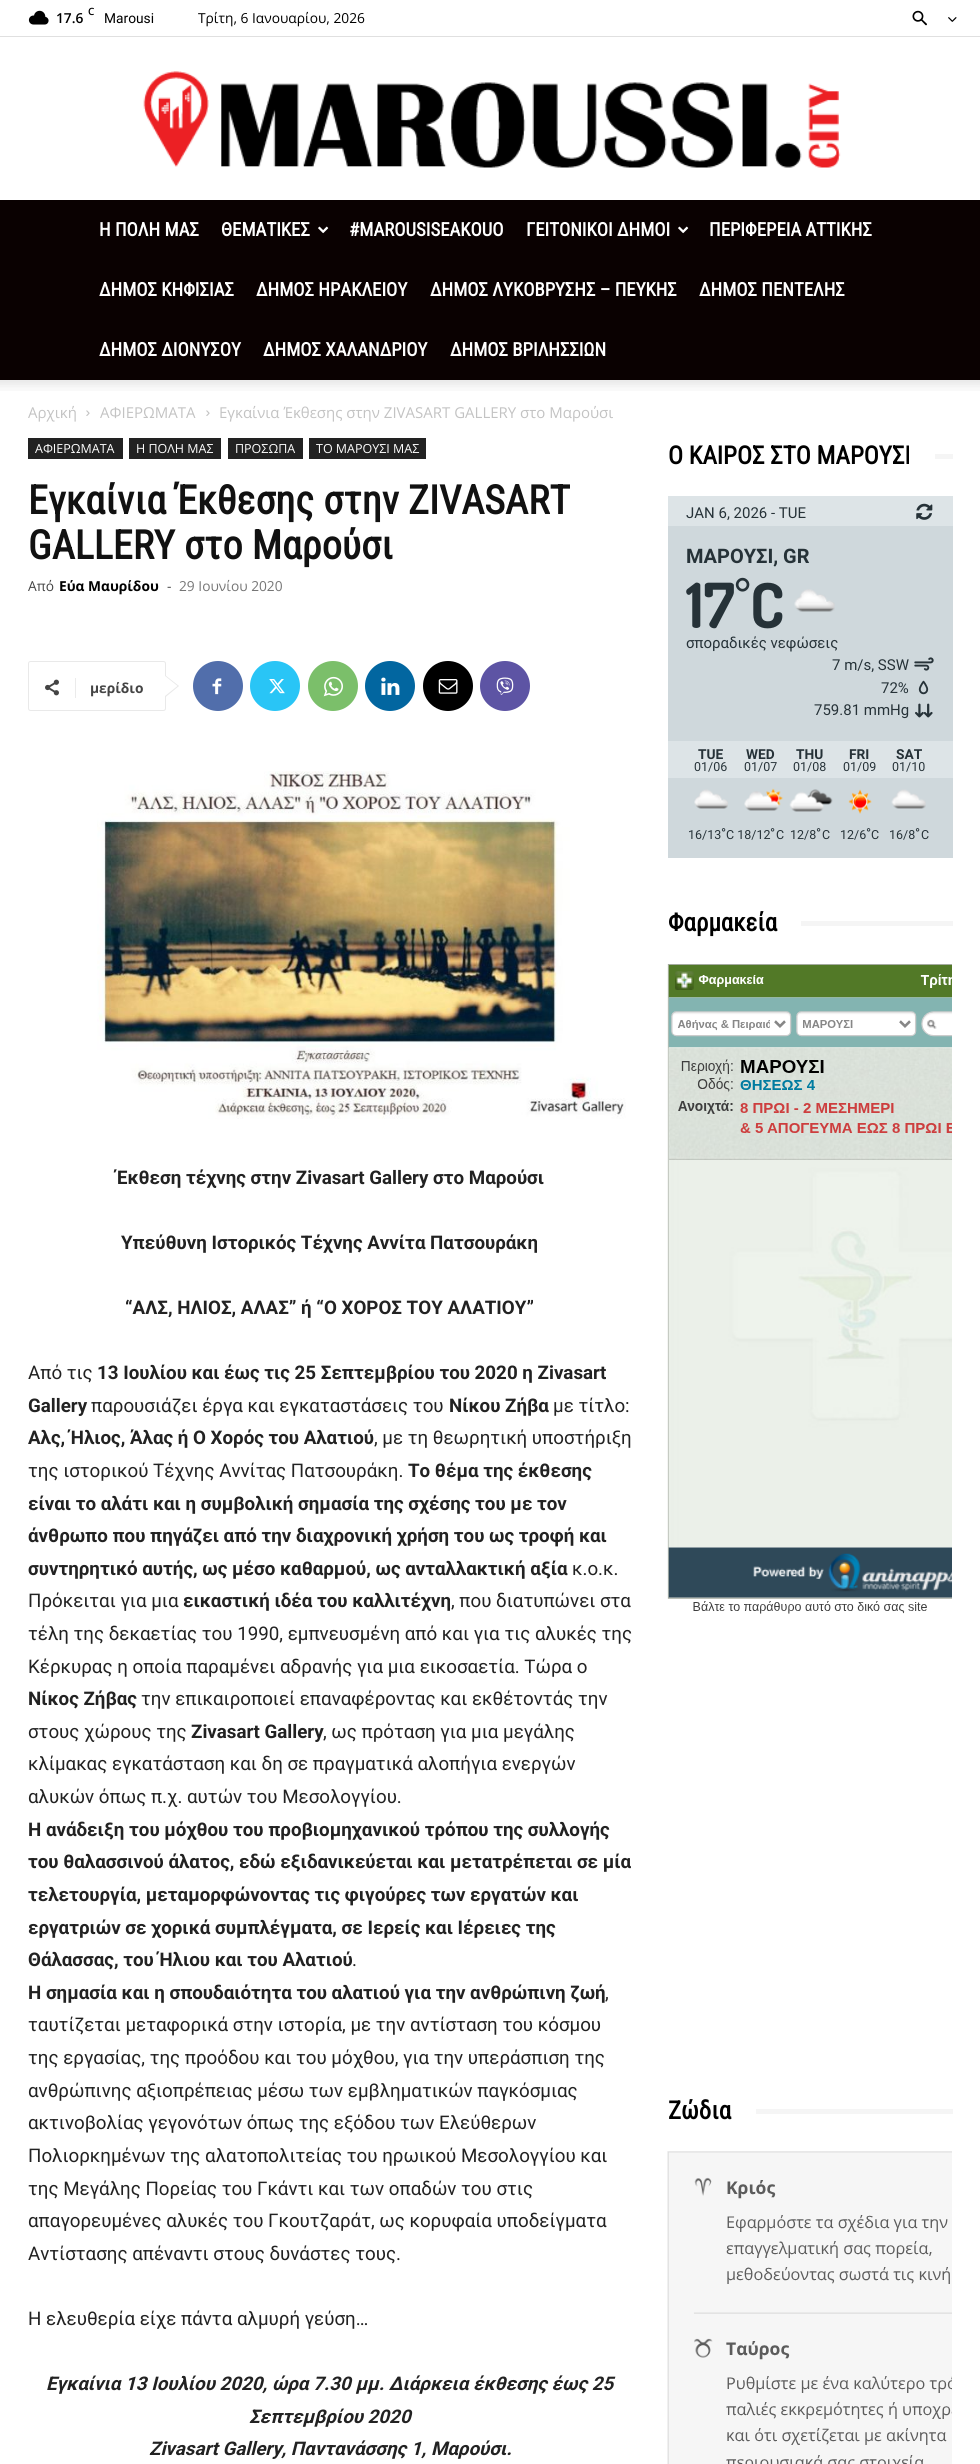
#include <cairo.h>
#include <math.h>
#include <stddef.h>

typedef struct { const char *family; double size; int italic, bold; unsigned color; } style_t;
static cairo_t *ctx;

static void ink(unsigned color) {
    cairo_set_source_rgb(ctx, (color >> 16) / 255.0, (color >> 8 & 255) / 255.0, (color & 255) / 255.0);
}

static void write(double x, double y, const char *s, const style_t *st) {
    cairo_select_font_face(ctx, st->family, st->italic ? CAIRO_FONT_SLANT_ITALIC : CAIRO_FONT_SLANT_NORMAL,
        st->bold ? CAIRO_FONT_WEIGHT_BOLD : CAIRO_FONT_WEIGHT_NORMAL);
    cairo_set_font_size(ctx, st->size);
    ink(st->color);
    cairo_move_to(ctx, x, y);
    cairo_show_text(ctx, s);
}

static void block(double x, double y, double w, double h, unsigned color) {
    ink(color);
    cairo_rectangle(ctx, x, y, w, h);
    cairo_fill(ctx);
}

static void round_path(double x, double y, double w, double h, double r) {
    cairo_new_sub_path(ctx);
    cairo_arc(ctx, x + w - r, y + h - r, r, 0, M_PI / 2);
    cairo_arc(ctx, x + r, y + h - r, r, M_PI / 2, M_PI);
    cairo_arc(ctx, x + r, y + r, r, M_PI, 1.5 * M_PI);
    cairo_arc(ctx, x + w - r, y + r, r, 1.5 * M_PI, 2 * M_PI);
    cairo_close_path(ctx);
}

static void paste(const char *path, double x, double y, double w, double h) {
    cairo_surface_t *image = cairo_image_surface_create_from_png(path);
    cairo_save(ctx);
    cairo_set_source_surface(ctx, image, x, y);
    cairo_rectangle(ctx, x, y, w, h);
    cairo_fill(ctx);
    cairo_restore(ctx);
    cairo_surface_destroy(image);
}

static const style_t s1 = {"Open Sans SemiBold", 10, 0, 0, 0x000000};
static const style_t s2 = {"Open Sans SemiBold", 13.75, 0, 0, 0x000000};
static const style_t s3 = {"Roboto", 13.75, 0, 0, 0x000000};
static const style_t s4 = {"Open Sans", 13.75, 0, 0, 0x000000};
static const style_t s5 = {"Roboto Condensed", 18.75, 0, 1, 0xffffff};
static const style_t s6 = {"Open Sans", 15, 0, 0, 0xc3c3c3};
static const style_t s7 = {"Open Sans", 12.5, 0, 0, 0xffffff};
static const style_t s8 = {"Roboto Condensed", 40, 0, 1, 0x111111};
static const style_t s9 = {"Open Sans", 13.75, 0, 0, 0x444444};
static const style_t s10 = {"Open Sans", 13.75, 0, 1, 0x000000};
static const style_t s11 = {"Open Sans", 13.75, 0, 0, 0x767676};
static const style_t s12 = {"Open Sans", 13.75, 0, 1, 0x444444};
static const style_t s13 = {"Roboto", 18.75, 0, 1, 0x222222};
static const style_t s14 = {"Roboto", 18.75, 0, 0, 0x222222};
static const style_t s15 = {"Roboto", 18.75, 1, 1, 0x222222};
static const style_t s16 = {"Roboto Condensed", 25, 0, 1, 0x000000};
static const style_t s17 = {"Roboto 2", 15, 0, 0, 0x263238};
static const style_t s18 = {"Roboto 2", 20, 0, 1, 0x263238};
static const style_t s19 = {"Dosis", 62, 0, 1, 0x263238};
static const style_t s20 = {"Dosis", 38, 0, 1, 0x263238};
static const style_t s21 = {"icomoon", 22, 0, 0, 0x263238};
static const style_t s22 = {"icomoon", 21, 0, 0, 0x263238};
static const style_t s23 = {"Roboto 2", 13.75, 0, 1, 0x263238};
static const style_t s24 = {"Roboto 2", 12.5, 0, 0, 0x263238};
static const style_t s25 = {"Roboto 2", 13.75, 0, 0, 0x263238};

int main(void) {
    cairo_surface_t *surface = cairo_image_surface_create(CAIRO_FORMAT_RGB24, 980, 2464);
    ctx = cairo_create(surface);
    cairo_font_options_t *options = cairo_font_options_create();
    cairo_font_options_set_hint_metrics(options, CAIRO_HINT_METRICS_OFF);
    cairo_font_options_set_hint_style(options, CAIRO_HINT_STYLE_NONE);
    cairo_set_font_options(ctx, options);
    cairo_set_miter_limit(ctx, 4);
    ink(0xffffff);
    cairo_paint(ctx);
    block(0, 36, 980, 1, 0xe0e0e0);
    paste("pic1.png", 28, 10, 21, 15);
    write(88, 15, "C", &s1);
    write(56, 23, "17.6", &s2);
    write(104, 23, "Marousi", &s3);
    write(198, 23, "Τρίτη, 6 Ιανουαρίου, 2026", &s4);
    paste("pic2.png", 912, 10, 15, 16);
    paste("pic3.png", 948, 17, 9, 5);
    paste("pic4.png", 143, 71, 698, 97);
    block(0, 200, 980, 180, 0x0a0101);
    write(99, 236, "Η ΠΟΛΗ ΜΑΣ", &s5);
    write(221, 236, "ΘΕΜΑΤΙΚΕΣ", &s5);
    paste("pic5.png", 318, 226, 11, 8);
    write(349, 236, "#MAROUSISEAKOUO", &s5);
    write(526, 236, "ΓΕΙΤΟΝΙΚΟΙ ΔΗΜΟΙ", &s5);
    paste("pic5.png", 678, 226, 11, 8);
    write(709, 236, "ΠΕΡΙΦΕΡΕΙΑ ΑΤΤΙΚΗΣ", &s5);
    write(99, 296, "ΔΗΜΟΣ ΚΗΦΙΣΙΑΣ", &s5);
    write(256, 296, "ΔΗΜΟΣ ΗΡΑΚΛΕΙΟΥ", &s5);
    write(430, 296, "ΔΗΜΟΣ ΛΥΚΟΒΡΥΣΗΣ – ΠΕΥΚΗΣ", &s5);
    write(699, 296, "ΔΗΜΟΣ ΠΕΝΤΕΛΗΣ", &s5);
    write(99, 356, "ΔΗΜΟΣ ΔΙΟΝΥΣΟΥ", &s5);
    write(263, 356, "ΔΗΜΟΣ ΧΑΛΑΝΔΡΙΟΥ", &s5);
    write(450, 356, "ΔΗΜΟΣ ΒΡΙΛΗΣΣΙΩΝ", &s5);
    paste("pic6.png", 0, 380, 980, 11);
    write(28, 418, "Αρχική", &s6);
    paste("pic7.png", 86, 410, 4, 6);
    write(100, 418, "ΑΦΙΕΡΩΜΑΤΑ", &s6);
    paste("pic7.png", 206, 410, 4, 6);
    write(219, 418, "Εγκαίνια Έκθεσης στην ZIVASART GALLERY στο Μαρούσι", &s6);
    block(28, 438, 95, 21, 0x222222);
    write(35, 453, "ΑΦΙΕΡΩΜΑΤΑ", &s7);
    block(129, 438, 92, 21, 0x222222);
    write(136, 453, "Η ΠΟΛΗ ΜΑΣ", &s7);
    block(228, 438, 75, 21, 0x222222);
    write(235, 453, "ΠΡΟΣΩΠΑ", &s7);
    block(309, 438, 117, 21, 0x222222);
    write(316, 453, "ΤΟ ΜΑΡΟΥΣΙ ΜΑΣ", &s7);
    write(28, 514, "Εγκαίνια Έκθεσης στην ZIVASART", &s8);
    write(28, 559, "GALLERY στο Μαρούσι", &s8);
    write(28, 591, "Από", &s9);
    write(59, 591, "Εύα Μαυρίδου", &s10);
    write(167, 591, "-", &s9);
    write(179, 591, "29 Ιουνίου 2020", &s11);
    round_path(28.5, 661.5, 137, 49, 2);
    ink(0xe9e9e9);
    cairo_set_line_width(ctx, 1);
    cairo_stroke(ctx);
    cairo_new_path(ctx);
    cairo_move_to(ctx, 165, 697.5);
    cairo_line_to(ctx, 165, 675);
    cairo_line_to(ctx, 179, 686);
    cairo_close_path(ctx);
    cairo_fill(ctx);
    paste("pic8.png", 45, 679, 14, 17);
    block(75, 678, 1, 20, 0xebebeb);
    write(90, 693, "μερίδιο", &s12);
    ink(0xffffff);
    cairo_new_path(ctx);
    cairo_move_to(ctx, 165, 696);
    cairo_line_to(ctx, 165, 676);
    cairo_line_to(ctx, 177.5, 686);
    cairo_close_path(ctx);
    cairo_fill(ctx);
    ink(0x516eab);
    cairo_arc(ctx, 218, 686, 25, 0, 2 * M_PI);
    cairo_fill(ctx);
    paste("pic9.png", 212, 678, 10, 17);
    ink(0x29c5f6);
    cairo_arc(ctx, 275, 686, 25, 0, 2 * M_PI);
    cairo_fill(ctx);
    paste("pic10.png", 269, 679, 16, 15);
    ink(0x7bbf6a);
    cairo_arc(ctx, 333, 686, 25, 0, 2 * M_PI);
    cairo_fill(ctx);
    paste("pic11.png", 323, 676, 20, 21);
    ink(0x0266a0);
    cairo_arc(ctx, 390, 686, 25, 0, 2 * M_PI);
    cairo_fill(ctx);
    paste("pic12.png", 381, 677, 19, 18);
    ink(0x000000);
    cairo_arc(ctx, 448, 686, 25, 0, 2 * M_PI);
    cairo_fill(ctx);
    paste("pic13.png", 438, 679, 20, 15);
    ink(0x5d54a4);
    cairo_arc(ctx, 505, 686, 25, 0, 2 * M_PI);
    cairo_fill(ctx);
    paste("pic14.png", 496, 677, 18, 18);
    paste("pic15.png", 97, 771, 529, 348);
    write(116, 1184, "Έκθεση τέχνης στην Zivasart Gallery στο Μαρούσι", &s13);
    write(121, 1249, "Υπεύθυνη Ιστορικός Τέχνης Αννίτα Πατσουράκη", &s13);
    write(125, 1314, "“ΑΛΣ, ΗΛΙΟΣ, ΑΛΑΣ” ή “Ο ΧΟΡΟΣ ΤΟΥ ΑΛΑΤΙΟΥ”", &s13);
    write(28, 1379, "Από τις", &s14);
    write(97, 1379, "13 Ιουλίου και έως τις 25 Σεπτεμβρίου του 2020 η Zivasart", &s13);
    write(28, 1412, "Gallery", &s13);
    write(91, 1412, "παρουσιάζει έργα και εγκαταστάσεις του", &s14);
    write(449, 1412, "Νίκου Ζήβα", &s13);
    write(553, 1412, "με τίτλο:", &s14);
    write(28, 1444, "Αλς, Ήλιος, Άλας ή Ο Χορός του Αλατιού", &s13);
    write(374, 1444, ", με τη θεωρητική υποστήριξη", &s14);
    write(28, 1477, "της ιστορικού Τέχνης Αννίτας Πατσουράκη.", &s14);
    write(408, 1477, "Το θέμα της έκθεσης", &s13);
    write(28, 1510, "είναι το αλάτι και η συμβολική σημασία της σχέσης του με τον", &s13);
    write(28, 1542, "άνθρωπο που πηγάζει από την διαχρονική χρήση του ως τροφή και", &s13);
    write(28, 1575, "συντηρητικό αυτής, ως μέσο καθαρμού, ως ανταλλακτική αξία", &s13);
    write(572, 1575, "κ.ο.κ.", &s14);
    write(28, 1607, "Πρόκειται για μια", &s14);
    write(183, 1607, "εικαστική ιδέα του καλλιτέχνη", &s13);
    write(451, 1607, ", που διατυπώνει στα", &s14);
    write(28, 1640, "τέλη της δεκαετίας του 1990, εμπνευσμένη από και για τις αλυκές της", &s14);
    write(28, 1673, "Κέρκυρας η οποία παραμένει αδρανής για μια εικοσαετία. Τώρα ο", &s14);
    write(28, 1705, "Νίκος Ζήβας", &s13);
    write(141, 1705, "την επικαιροποιεί επαναφέροντας και εκθέτοντάς την", &s14);
    write(28, 1738, "στους χώρους της", &s14);
    write(191, 1738, "Zivasart Gallery", &s13);
    write(323, 1738, ", ως πρόταση για μια μεγάλης", &s14);
    write(28, 1770, "κλίμακας εγκατάσταση και δη σε πραγματικά αλοπήγια ενεργών", &s14);
    write(28, 1803, "αλυκών όπως π.χ. αυτών του Μεσολογγίου.", &s14);
    write(28, 1836, "Η ανάδειξη του μόχθου του προβιομηχανικού τρόπου της συλλογής", &s13);
    write(28, 1868, "του θαλασσινού άλατος, εδώ εξιδανικεύεται και μετατρέπεται σε μία", &s13);
    write(28, 1901, "τελετουργία, μεταμορφώνοντας τις φιγούρες των εργατών και", &s13);
    write(28, 1934, "εργατριών σε χορικά συμπλέγματα, σε Ιερείς και Ιέρειες της", &s13);
    write(28, 1966, "Θάλασσας, του Ήλιου και του Αλατιού", &s13);
    write(352, 1966, ".", &s14);
    write(28, 1999, "Η σημασία και η σπουδαιότητα του αλατιού για την ανθρώπινη ζωή", &s13);
    write(605, 1999, ",", &s14);
    write(28, 2031, "ταυτίζεται μεταφορικά στην ιστορία, με την αντίσταση του κόσμου", &s14);
    write(28, 2064, "της εργασίας, της προόδου και του μόχθου, για την υπεράσπιση της", &s14);
    write(28, 2097, "ανθρώπινης αξιοπρέπειας μέσω των εμβληματικών παγκόσμιας", &s14);
    write(28, 2129, "ακτινοβολίας γεγονότων όπως της εξόδου των Ελεύθερων", &s14);
    write(28, 2162, "Πολιορκημένων της αλατοπολιτείας του ηρωικού Μεσολογγίου και", &s14);
    write(28, 2195, "της Μεγάλης Πορείας του Γκάντι και των οπαδών του στις", &s14);
    write(28, 2227, "απαγορευμένες αλυκές του Γκουτζαράτ, ως κορυφαία υποδείγματα", &s14);
    write(28, 2260, "Αντίστασης απέναντι στους δυνάστες τους.", &s14);
    write(28, 2325, "Η ελευθερία είχε πάντα αλμυρή γεύση…", &s14);
    write(46, 2390, "Εγκαίνια 13 Ιουλίου 2020, ώρα 7.30 μμ. Διάρκεια έκθεσης έως 25", &s15);
    write(249, 2423, "Σεπτεμβρίου 2020", &s15);
    write(149, 2455, "Zivasart Gallery, Παντανάσσης 1, Μαρούσι.", &s15);
    write(668, 464, "Ο ΚΑΙΡΟΣ ΣΤΟ ΜΑΡΟΥΣΙ", &s16);
    block(935, 454, 18, 5, 0xf5f5f5);
    block(668, 526, 285, 332, 0xcfd8dc);
    block(668, 496, 285, 30, 0xdde4e7);
    write(686, 518, "JAN 6, 2026 - TUE", &s17);
    paste("pic16.png", 916, 503, 17, 17);
    write(686, 563, "ΜΑΡΟΥΣΙ, GR", &s18);
    write(686, 628, "17", &s19);
    write(735, 607, "°", &s20);
    write(750, 628, "C", &s19);
    paste("pic17.png", 794, 589, 41, 23);
    write(686, 648, "σποραδικές νεφώσεις", &s17);
    write(832, 670, "7 m/s, SSW", &s17);
    write(913, 675, "|", &s21);
    write(881, 693, "72%", &s17);
    write(913, 698, "-", &s22);
    write(814, 715, "759.81 mmHg", &s17);
    paste("pic18.png", 915, 703, 9, 15);
    paste("pic19.png", 923, 703, 10, 15);
    block(668, 741, 285, 37, 0xdde4e7);
    write(698, 759, "TUE", &s23);
    write(694, 771, "01/06", &s24);
    write(746, 759, "WED", &s23);
    write(744, 771, "01/07", &s24);
    write(796, 759, "THU", &s23);
    write(793, 771, "01/08", &s24);
    write(849, 759, "FRI", &s23);
    write(843, 771, "01/09", &s24);
    write(896, 759, "SAT", &s23);
    write(892, 771, "01/10", &s24);
    paste("pic20.png", 694, 789, 34, 20);
    write(688, 839, "16/13", &s24);
    write(721, 838, "°", &s25);
    write(726, 839, "C 18/12", &s24);
    paste("pic21.png", 744, 788, 40, 23);
    write(770, 838, "°", &s25);
    write(776, 839, "C", &s24);
    paste("pic22.png", 789, 789, 44, 23);
    write(790, 839, "12/8", &s24);
    write(816, 838, "°", &s25);
    write(822, 839, "C", &s24);
    paste("pic23.png", 848, 789, 24, 25);
    write(840, 839, "12/6", &s24);
    write(866, 838, "°", &s25);
    write(871, 839, "C", &s24);
    paste("pic24.png", 891, 789, 35, 20);
    write(889, 839, "16/8", &s24);
    write(915, 838, "°", &s25);
    write(921, 839, "C", &s24);
    write(668, 931, "Φαρμακεία", &s16);
    block(801, 921, 152, 5, 0xf5f5f5);
    paste("pic25.png", 667, 964, 285, 650);
    write(668, 2119, "Ζώδια", &s16);
    block(756, 2109, 197, 5, 0xf5f5f5);
    paste("pic26.png", 667, 2151, 285, 313);
    cairo_surface_write_to_png(surface, "screenshot.png");
    cairo_font_options_destroy(options);
    cairo_destroy(ctx);
    cairo_surface_destroy(surface);
    return 0;
}
